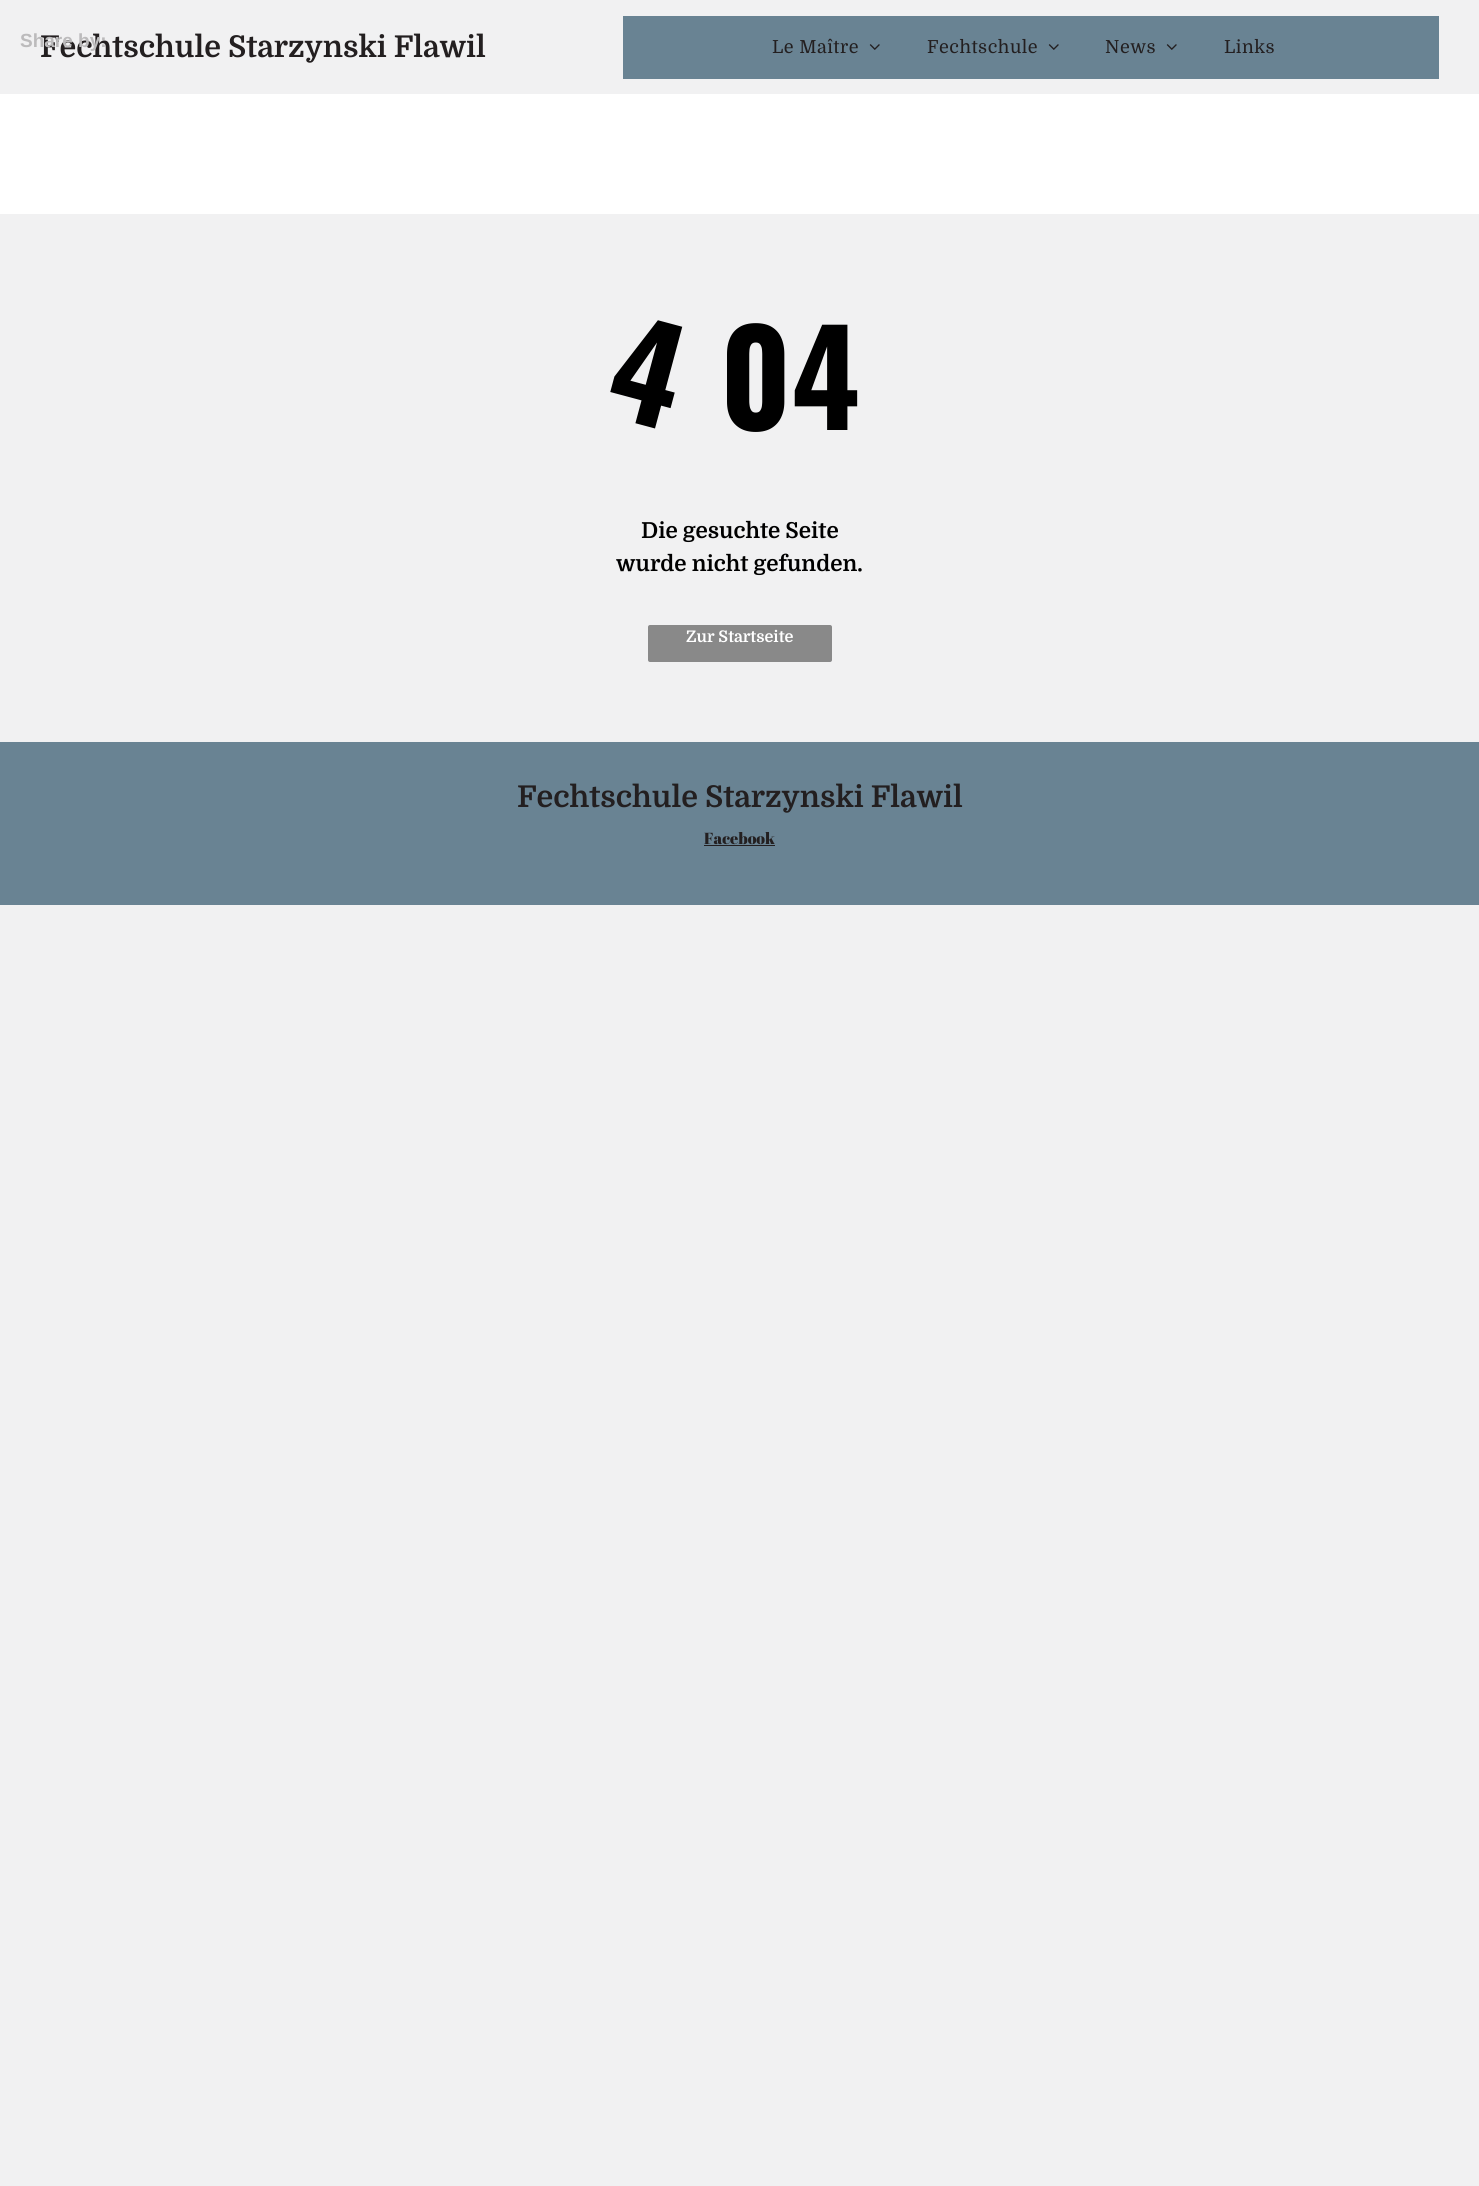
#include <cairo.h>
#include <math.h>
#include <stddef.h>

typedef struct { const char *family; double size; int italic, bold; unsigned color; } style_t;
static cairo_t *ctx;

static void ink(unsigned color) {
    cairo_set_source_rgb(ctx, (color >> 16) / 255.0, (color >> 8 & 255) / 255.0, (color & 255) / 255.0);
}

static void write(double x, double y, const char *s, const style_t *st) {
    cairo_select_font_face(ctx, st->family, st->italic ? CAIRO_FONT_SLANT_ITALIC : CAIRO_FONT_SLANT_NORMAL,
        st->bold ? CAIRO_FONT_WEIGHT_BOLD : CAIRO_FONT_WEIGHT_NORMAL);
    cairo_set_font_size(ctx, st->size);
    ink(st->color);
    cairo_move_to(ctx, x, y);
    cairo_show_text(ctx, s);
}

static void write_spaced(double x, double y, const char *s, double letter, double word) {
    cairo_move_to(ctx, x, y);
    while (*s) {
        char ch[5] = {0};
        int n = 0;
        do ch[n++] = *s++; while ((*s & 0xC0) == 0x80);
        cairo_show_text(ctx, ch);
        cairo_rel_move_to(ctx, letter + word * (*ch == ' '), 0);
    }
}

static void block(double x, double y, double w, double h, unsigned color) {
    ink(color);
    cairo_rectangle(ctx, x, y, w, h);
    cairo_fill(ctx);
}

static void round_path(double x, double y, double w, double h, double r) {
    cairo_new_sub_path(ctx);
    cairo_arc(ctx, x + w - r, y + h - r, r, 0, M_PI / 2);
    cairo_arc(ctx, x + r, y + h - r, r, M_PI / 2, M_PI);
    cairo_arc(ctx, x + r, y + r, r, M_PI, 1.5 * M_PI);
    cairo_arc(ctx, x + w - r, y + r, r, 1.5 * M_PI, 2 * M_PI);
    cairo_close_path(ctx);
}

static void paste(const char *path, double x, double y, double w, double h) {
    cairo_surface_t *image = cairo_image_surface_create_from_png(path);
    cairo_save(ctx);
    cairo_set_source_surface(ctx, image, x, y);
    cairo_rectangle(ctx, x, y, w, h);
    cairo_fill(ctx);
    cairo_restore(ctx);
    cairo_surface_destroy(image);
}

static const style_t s1 = {"Domine", 30, 0, 1, 0x231f20};
static const style_t s2 = {"Liberation Sans", 19, 0, 1, 0xbcbbbc};
static const style_t s3 = {"Oswald", 130, 0, 1, 0x000000};
static const style_t s4 = {"Domine", 22, 0, 1, 0x000000};
static const style_t s5 = {"Domine", 16, 0, 1, 0xffffff};
static const style_t s6 = {"Abril Fatface", 16, 0, 0, 0x231f20};

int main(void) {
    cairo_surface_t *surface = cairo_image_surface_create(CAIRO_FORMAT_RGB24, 1479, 2186);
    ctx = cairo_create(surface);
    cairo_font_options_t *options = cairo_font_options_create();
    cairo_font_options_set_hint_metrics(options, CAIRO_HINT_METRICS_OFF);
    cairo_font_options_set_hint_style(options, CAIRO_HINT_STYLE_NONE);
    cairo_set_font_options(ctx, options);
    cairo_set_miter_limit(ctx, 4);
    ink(0xf1f1f2);
    cairo_paint(ctx);
    write(40, 57, "Fechtschule Starzynski Flawil", &s1);
    write(20, 47, "Share by:", &s2);
    block(623, 16, 816, 63, 0x698393);
    cairo_select_font_face(ctx, "Domine", CAIRO_FONT_SLANT_NORMAL, CAIRO_FONT_WEIGHT_NORMAL);
    cairo_set_font_size(ctx, 18);
    ink(0x231f20);
    write_spaced(772, 53, "Le Maître", 0.5, 0);
    paste("pic1.png", 869, 44, 11, 6);
    write_spaced(927, 53, "Fechtschule", 0.5, 0);
    paste("pic1.png", 1048, 44, 11, 6);
    write_spaced(1105, 53, "News", 0.5, 0);
    paste("pic1.png", 1166, 44, 11, 6);
    write_spaced(1224, 53, "Links", 0.5, 0);
    block(0, 94, 1479, 120, 0xffffff);
    cairo_save(ctx);
    cairo_translate(ctx, 601, 414);
    cairo_rotate(ctx, 15 * M_PI / 180);
    write(0, 0, "4", &s3);
    cairo_restore(ctx);
    write(720, 430, "04", &s3);
    write(641, 538, "Die gesuchte Seite", &s4);
    write(616, 571, "wurde nicht gefunden.", &s4);
    ink(0x898989);
    round_path(648, 625, 184, 37, 2);
    cairo_fill(ctx);
    write(686, 642, "Zur Startseite", &s5);
    block(0, 742, 1479, 163, 0x698393);
    write(517, 807, "Fechtschule Starzynski Flawil", &s1);
    write(704, 844, "Facebook", &s6);
    block(704, 845, 71, 1, 0x231f20);
    cairo_surface_write_to_png(surface, "screenshot.png");
    cairo_font_options_destroy(options);
    cairo_destroy(ctx);
    cairo_surface_destroy(surface);
    return 0;
}
